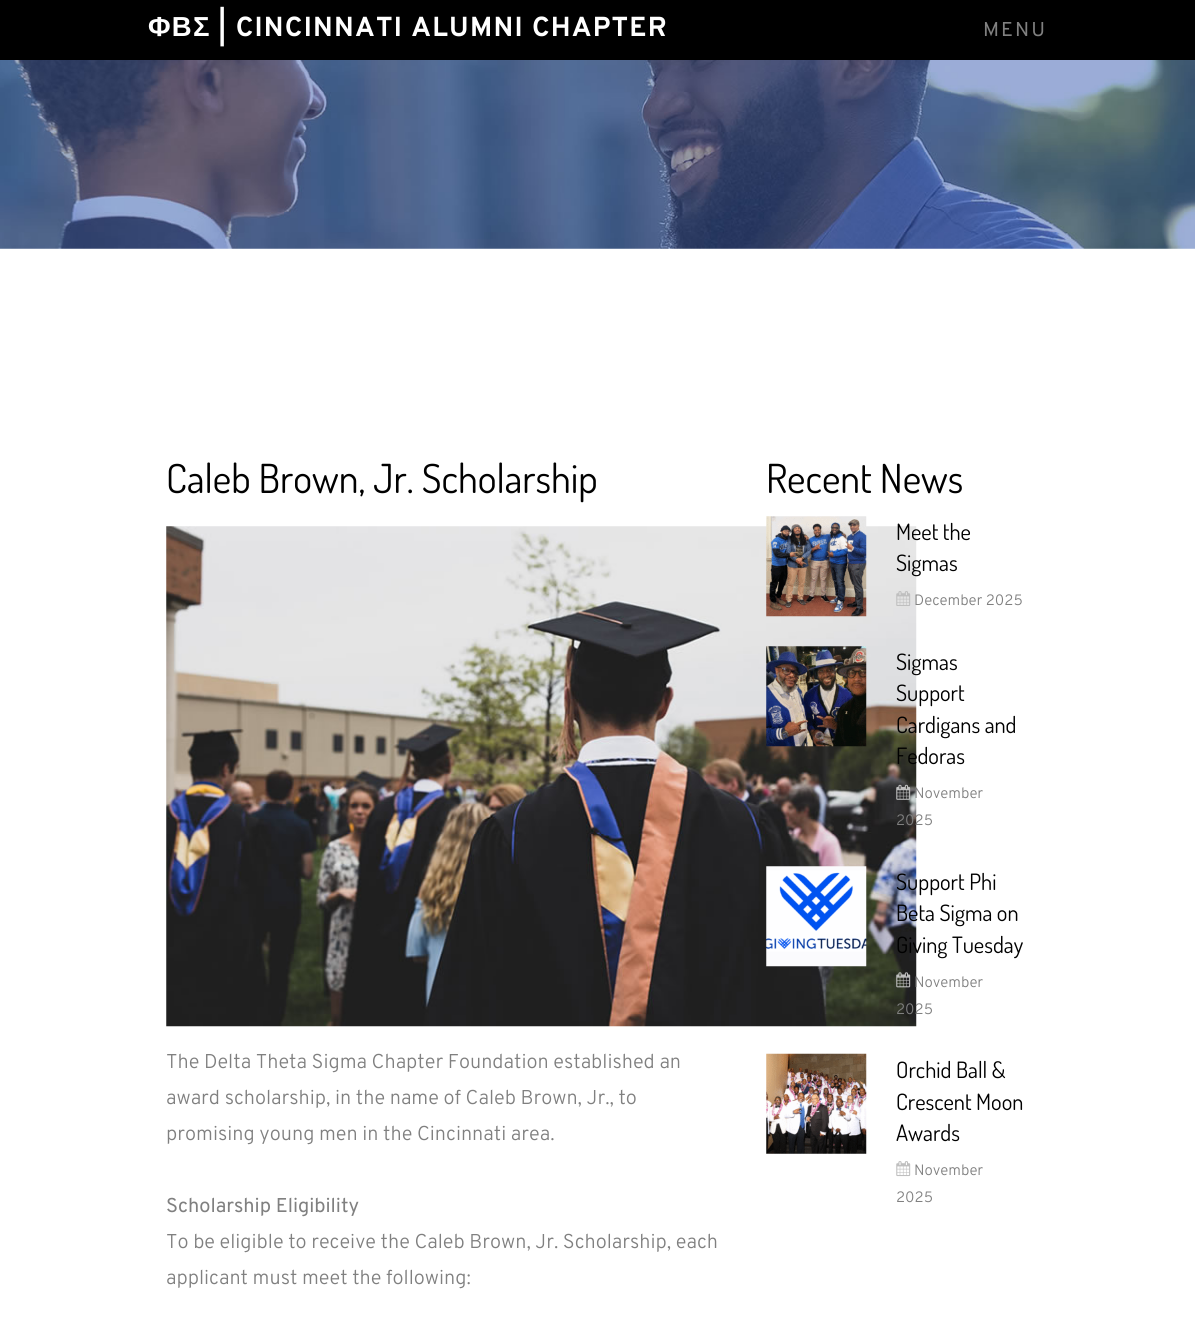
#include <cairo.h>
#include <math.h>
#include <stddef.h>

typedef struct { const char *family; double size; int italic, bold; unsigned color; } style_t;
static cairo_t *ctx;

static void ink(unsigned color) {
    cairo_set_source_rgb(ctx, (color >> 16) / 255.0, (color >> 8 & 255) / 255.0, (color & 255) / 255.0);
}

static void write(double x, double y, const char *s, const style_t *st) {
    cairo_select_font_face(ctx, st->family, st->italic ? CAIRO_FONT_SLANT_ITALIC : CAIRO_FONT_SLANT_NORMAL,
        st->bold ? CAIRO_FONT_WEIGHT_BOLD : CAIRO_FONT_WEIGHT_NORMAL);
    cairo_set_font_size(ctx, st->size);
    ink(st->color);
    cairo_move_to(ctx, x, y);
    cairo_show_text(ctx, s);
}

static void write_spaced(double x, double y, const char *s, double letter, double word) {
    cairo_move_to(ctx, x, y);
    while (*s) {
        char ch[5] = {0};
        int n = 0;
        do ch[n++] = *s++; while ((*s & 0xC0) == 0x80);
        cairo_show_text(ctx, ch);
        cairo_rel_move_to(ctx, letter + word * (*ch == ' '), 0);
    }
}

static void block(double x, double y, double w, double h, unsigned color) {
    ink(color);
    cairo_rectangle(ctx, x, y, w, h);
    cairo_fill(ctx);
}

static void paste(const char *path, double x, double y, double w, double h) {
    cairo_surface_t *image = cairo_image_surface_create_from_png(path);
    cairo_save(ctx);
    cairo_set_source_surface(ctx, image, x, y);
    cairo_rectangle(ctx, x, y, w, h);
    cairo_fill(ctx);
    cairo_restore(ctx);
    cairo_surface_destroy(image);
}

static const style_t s1 = {"Dosis", 40, 0, 0, 0x000000};
static const style_t s2 = {"Overpass Light", 20, 0, 0, 0x808080};
static const style_t s3 = {"Overpass", 20, 0, 0, 0x808080};
static const style_t s4 = {"Dosis", 22.5, 0, 0, 0x000000};
static const style_t s5 = {"Overpass Light", 15, 0, 0, 0x808080};

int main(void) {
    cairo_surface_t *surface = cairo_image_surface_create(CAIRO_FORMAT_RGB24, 1195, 1328);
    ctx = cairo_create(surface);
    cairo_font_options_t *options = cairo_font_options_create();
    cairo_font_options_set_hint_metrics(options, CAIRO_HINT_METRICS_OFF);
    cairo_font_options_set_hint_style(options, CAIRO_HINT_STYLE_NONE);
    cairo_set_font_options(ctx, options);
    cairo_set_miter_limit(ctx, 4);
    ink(0xffffff);
    cairo_paint(ctx);
    block(0, 0, 1195, 60, 0x000000);
    cairo_select_font_face(ctx, "Liberation Sans", CAIRO_FONT_SLANT_NORMAL, CAIRO_FONT_WEIGHT_BOLD);
    cairo_set_font_size(ctx, 27.5);
    ink(0xffffff);
    write_spaced(148, 36, "ΦΒΣ", 1.25, 0);
    cairo_select_font_face(ctx, "Overpass", CAIRO_FONT_SLANT_NORMAL, CAIRO_FONT_WEIGHT_BOLD);
    write_spaced(218, 36, "| CINCINNATI ALUMNI CHAPTER", 1.25, 0);
    cairo_select_font_face(ctx, "Overpass", CAIRO_FONT_SLANT_NORMAL, CAIRO_FONT_WEIGHT_NORMAL);
    cairo_set_font_size(ctx, 20);
    ink(0x808080);
    write_spaced(983, 36, "MENU", 2, 0);
    paste("pic1.png", 0, 60, 1195, 189);
    write(166, 493, "Caleb Brown, Jr. Scholarship", &s1);
    paste("pic2.png", 166, 526, 751, 501);
    write(166, 1068, "The Delta Theta Sigma Chapter Foundation established an", &s2);
    write(166, 1104, "award scholarship, in the name of Caleb Brown, Jr., to", &s2);
    write(166, 1140, "promising young men in the Cincinnati area.", &s2);
    write(166, 1212, "Scholarship Eligibility", &s3);
    write(166, 1248, "To be eligible to receive the Caleb Brown, Jr. Scholarship, each", &s2);
    write(166, 1284, "applicant must meet the following:", &s2);
    write(766, 493, "Recent News", &s1);
    paste("pic3.png", 766, 516, 101, 101);
    write(896, 540, "Meet the", &s4);
    write(896, 571, "Sigmas", &s4);
    paste("pic4.png", 896, 591, 15, 15);
    write(914, 605, "December 2025", &s5);
    paste("pic5.png", 766, 646, 101, 101);
    write(896, 670, "Sigmas", &s4);
    write(896, 701, "Support", &s4);
    write(896, 733, "Cardigans and", &s4);
    write(896, 764, "Fedoras", &s4);
    paste("pic6.png", 896, 784, 15, 16);
    write(914, 798, "November", &s5);
    write(896, 825, "2025", &s5);
    paste("pic7.png", 766, 866, 101, 101);
    write(896, 890, "Support Phi", &s4);
    write(896, 921, "Beta Sigma on", &s4);
    write(896, 953, "Giving Tuesday", &s4);
    paste("pic8.png", 896, 972, 15, 16);
    write(914, 987, "November", &s5);
    write(896, 1014, "2025", &s5);
    paste("pic9.png", 766, 1053, 101, 101);
    write(896, 1078, "Orchid Ball &", &s4);
    write(896, 1110, "Crescent Moon", &s4);
    write(896, 1141, "Awards", &s4);
    paste("pic10.png", 896, 1161, 15, 16);
    write(914, 1175, "November", &s5);
    write(896, 1202, "2025", &s5);
    cairo_surface_write_to_png(surface, "screenshot.png");
    cairo_font_options_destroy(options);
    cairo_destroy(ctx);
    cairo_surface_destroy(surface);
    return 0;
}
